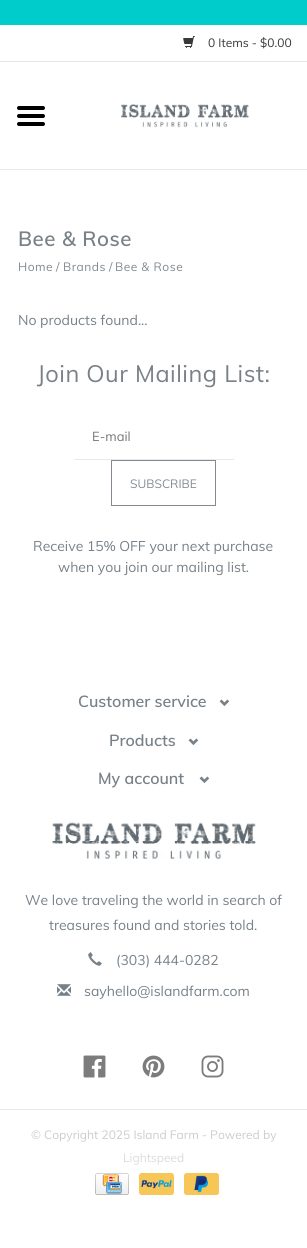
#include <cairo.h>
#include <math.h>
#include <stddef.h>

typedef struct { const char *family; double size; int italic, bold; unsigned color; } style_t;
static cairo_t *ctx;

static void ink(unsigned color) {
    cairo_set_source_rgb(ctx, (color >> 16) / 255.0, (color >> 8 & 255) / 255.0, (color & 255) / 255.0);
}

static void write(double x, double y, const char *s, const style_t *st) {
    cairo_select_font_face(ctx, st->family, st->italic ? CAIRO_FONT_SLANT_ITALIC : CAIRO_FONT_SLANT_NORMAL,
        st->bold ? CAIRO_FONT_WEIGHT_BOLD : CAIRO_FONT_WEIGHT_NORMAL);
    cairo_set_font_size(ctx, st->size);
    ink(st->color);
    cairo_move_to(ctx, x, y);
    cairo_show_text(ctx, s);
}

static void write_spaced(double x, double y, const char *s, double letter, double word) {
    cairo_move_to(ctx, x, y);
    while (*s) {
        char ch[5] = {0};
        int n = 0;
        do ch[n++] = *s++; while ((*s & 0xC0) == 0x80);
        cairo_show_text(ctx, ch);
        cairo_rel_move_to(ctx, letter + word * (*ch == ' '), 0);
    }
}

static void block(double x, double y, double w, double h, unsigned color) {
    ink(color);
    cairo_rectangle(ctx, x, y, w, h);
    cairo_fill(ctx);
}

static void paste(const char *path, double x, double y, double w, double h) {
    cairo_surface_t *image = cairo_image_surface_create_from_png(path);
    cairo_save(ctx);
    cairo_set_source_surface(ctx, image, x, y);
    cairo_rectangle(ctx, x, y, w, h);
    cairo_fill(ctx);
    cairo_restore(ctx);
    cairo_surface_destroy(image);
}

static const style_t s1 = {"Muli", 12, 0, 0, 0x393939};
static const style_t s2 = {"Muli", 12, 0, 0, 0x828b91};
static const style_t s3 = {"Muli", 14, 0, 0, 0x788188};
static const style_t s4 = {"Muli", 13, 0, 0, 0x757575};
static const style_t s5 = {"Muli SemiBold", 16, 0, 0, 0x788188};
static const style_t s6 = {"Muli", 12, 0, 0, 0xc9cdcf};
static const style_t s7 = {"Muli", 12, 0, 0, 0xd9dcde};

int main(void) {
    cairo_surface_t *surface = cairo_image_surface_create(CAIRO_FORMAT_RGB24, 307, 1248);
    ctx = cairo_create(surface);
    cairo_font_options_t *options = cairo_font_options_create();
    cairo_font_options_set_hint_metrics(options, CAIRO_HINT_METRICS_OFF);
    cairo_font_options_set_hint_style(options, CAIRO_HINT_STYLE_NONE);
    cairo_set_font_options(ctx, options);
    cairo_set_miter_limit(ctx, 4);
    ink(0xffffff);
    cairo_paint(ctx);
    block(0, 0, 307, 25, 0x00cccc);
    block(0, 61, 307, 1, 0xe5e5e5);
    paste("pic1.png", 183, 36, 12, 12);
    write(208, 47, "0 Items - $0.00", &s1);
    block(0, 169, 307, 1, 0xeaeaea);
    paste("pic2.png", 121, 104, 128, 24);
    paste("pic3.png", 17, 106, 28, 20);
    cairo_select_font_face(ctx, "Muli SemiBold", CAIRO_FONT_SLANT_NORMAL, CAIRO_FONT_WEIGHT_NORMAL);
    cairo_set_font_size(ctx, 20.5);
    ink(0x788188);
    write_spaced(18, 246, "Bee & Rose", 0.5, 0);
    cairo_select_font_face(ctx, "Muli", CAIRO_FONT_SLANT_NORMAL, CAIRO_FONT_WEIGHT_NORMAL);
    cairo_set_font_size(ctx, 12);
    ink(0x828b91);
    write_spaced(18, 271, "Home", 0.5, 0);
    write(56, 271, "/", &s2);
    write_spaced(63, 271, "Brands", 0.5, 0);
    write(109, 271, "/", &s2);
    write_spaced(115, 271, "Bee & Rose", 0.5, 0);
    write(18, 325, "No products found...", &s3);
    cairo_set_font_size(ctx, 23.6);
    write_spaced(37, 382, "Join Our Mailing List:", 0.5, 0);
    block(74, 459, 160, 1, 0xe9e9e9);
    write(92, 441, "E-mail", &s4);
    cairo_rectangle(ctx, 111.5, 460.5, 104, 45);
    ink(0x828b91);
    cairo_set_line_width(ctx, 1);
    cairo_stroke(ctx);
    write(130, 488, "SUBSCRIBE", &s2);
    write(33, 551, "Receive 15% OFF your next purchase", &s3);
    write(58, 572, "when you join our mailing list.", &s3);
    write(78, 707, "Customer service", &s5);
    paste("pic4.png", 219, 699, 11, 8);
    write(109, 746, "Products", &s5);
    paste("pic4.png", 188, 738, 11, 8);
    write(98, 784, "My account", &s5);
    paste("pic4.png", 199, 776, 11, 8);
    paste("pic5.png", 52, 822, 204, 37);
    write(25, 905, "We love traveling the world in search of", &s3);
    write(49, 930, "treasures found and stories told.", &s3);
    paste("pic6.png", 88, 952, 14, 14);
    write(116, 965, "(303) 444-0282", &s3);
    paste("pic7.png", 57, 984, 14, 12);
    write(84, 996, "sayhello@islandfarm.com", &s3);
    paste("pic8.png", 83, 1055, 23, 23);
    paste("pic9.png", 142, 1055, 23, 23);
    paste("pic10.png", 201, 1055, 23, 23);
    block(0, 1109, 307, 1, 0xe9e9e9);
    write(31, 1139, "© Copyright 2025 Island Farm - Powered by", &s6);
    write(123, 1162, "Lightspeed", &s7);
    paste("pic11.png", 95, 1173, 34, 22);
    paste("pic12.png", 139, 1173, 35, 22);
    paste("pic13.png", 184, 1173, 35, 22);
    cairo_surface_write_to_png(surface, "screenshot.png");
    cairo_font_options_destroy(options);
    cairo_destroy(ctx);
    cairo_surface_destroy(surface);
    return 0;
}
